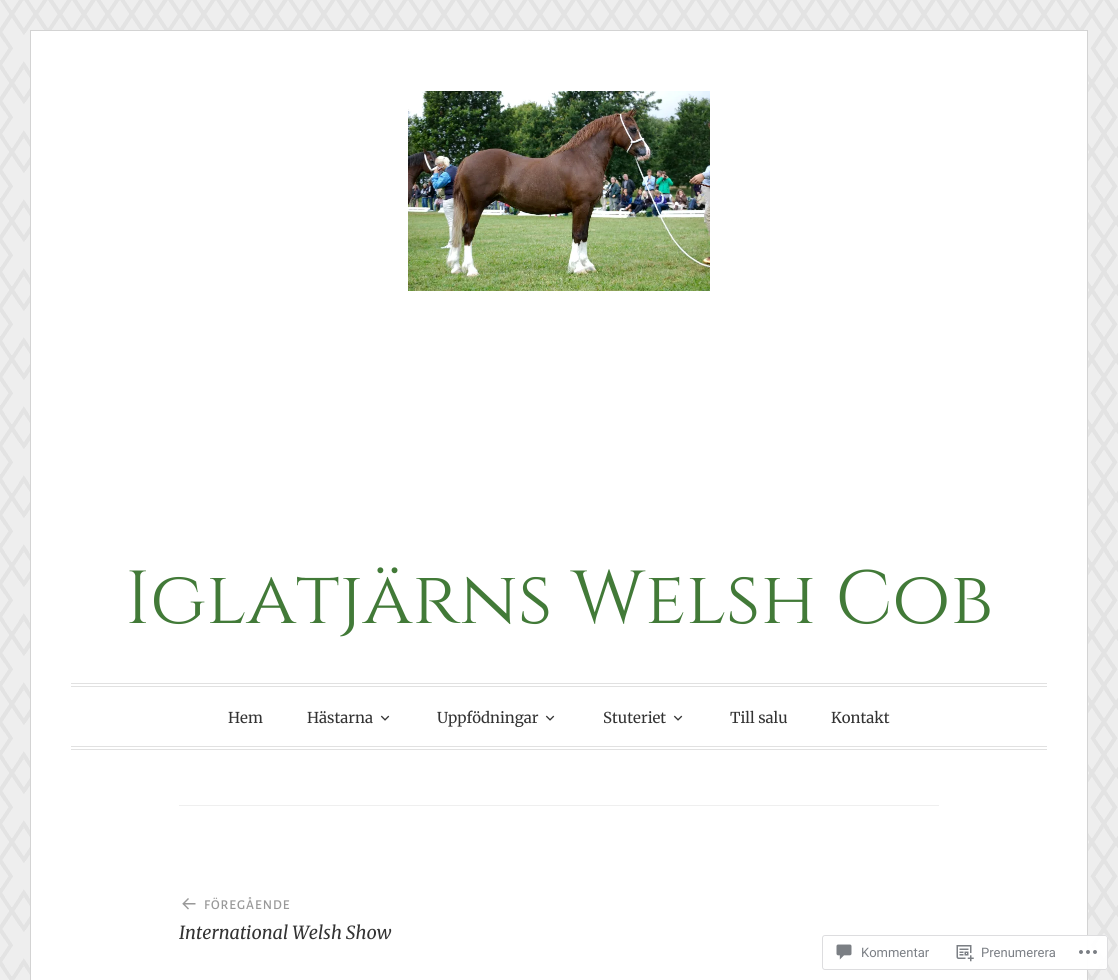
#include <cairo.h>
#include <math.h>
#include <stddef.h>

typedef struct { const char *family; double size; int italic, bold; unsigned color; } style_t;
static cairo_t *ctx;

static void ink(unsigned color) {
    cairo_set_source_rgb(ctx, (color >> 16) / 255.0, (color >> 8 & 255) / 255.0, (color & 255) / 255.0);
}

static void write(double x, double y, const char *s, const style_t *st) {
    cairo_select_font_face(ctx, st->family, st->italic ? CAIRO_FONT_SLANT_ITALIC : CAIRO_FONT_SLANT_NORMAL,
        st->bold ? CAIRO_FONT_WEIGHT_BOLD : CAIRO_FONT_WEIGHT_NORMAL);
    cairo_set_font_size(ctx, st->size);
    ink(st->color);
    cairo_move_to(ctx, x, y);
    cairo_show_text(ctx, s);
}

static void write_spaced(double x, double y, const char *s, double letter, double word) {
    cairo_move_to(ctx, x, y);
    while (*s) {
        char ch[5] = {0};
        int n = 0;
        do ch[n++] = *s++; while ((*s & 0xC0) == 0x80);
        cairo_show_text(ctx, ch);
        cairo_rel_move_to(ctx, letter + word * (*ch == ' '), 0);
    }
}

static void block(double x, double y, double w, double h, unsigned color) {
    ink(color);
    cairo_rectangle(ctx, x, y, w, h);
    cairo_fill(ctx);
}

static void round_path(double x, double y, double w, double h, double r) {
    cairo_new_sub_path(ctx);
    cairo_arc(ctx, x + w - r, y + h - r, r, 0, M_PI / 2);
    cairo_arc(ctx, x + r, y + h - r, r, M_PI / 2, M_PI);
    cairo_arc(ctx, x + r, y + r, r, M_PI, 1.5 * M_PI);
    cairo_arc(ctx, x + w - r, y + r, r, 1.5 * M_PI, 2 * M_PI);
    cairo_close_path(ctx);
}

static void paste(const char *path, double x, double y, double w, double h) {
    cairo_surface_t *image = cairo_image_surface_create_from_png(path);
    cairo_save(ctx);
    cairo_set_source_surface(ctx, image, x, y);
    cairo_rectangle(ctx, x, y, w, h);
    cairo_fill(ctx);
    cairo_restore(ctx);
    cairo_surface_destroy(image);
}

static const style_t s1 = {"Cinzel", 75, 0, 0, 0x427a38};
static const style_t s2 = {"Merriweather", 15, 0, 0, 0x333333};
static const style_t s3 = {"Merriweather", 18, 1, 0, 0x333333};
static const style_t s4 = {"Roboto", 13, 0, 0, 0x7b7f85};

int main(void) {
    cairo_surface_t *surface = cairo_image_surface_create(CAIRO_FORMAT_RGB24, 1118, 980);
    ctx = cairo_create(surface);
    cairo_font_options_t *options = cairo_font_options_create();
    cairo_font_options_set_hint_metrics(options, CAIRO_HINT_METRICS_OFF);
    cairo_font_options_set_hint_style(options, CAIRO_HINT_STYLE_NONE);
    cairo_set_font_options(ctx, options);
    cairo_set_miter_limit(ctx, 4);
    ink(0xeeeeee);
    cairo_paint(ctx);
    paste("pic1.png", 0, 0, 1118, 980);
    ink(0xffffff);
    cairo_rectangle(ctx, 30.5, 30.5, 1057, 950);
    cairo_fill_preserve(ctx);
    ink(0xd3d3d3);
    cairo_set_line_width(ctx, 1);
    cairo_stroke(ctx);
    paste("pic2.png", 408, 91, 302, 200);
    write(125, 623, "Iglatjärns Welsh Cob", &s1);
    block(71, 683, 976, 1, 0xe1e1e1);
    block(71, 686, 976, 1, 0xe1e1e1);
    block(71, 746, 976, 1, 0xe1e1e1);
    block(71, 749, 976, 1, 0xe1e1e1);
    write(228, 723, "Hem", &s2);
    write(307, 723, "Hästarna", &s2);
    paste("pic3.png", 380, 715, 10, 6);
    write(437, 723, "Uppfödningar", &s2);
    paste("pic3.png", 545, 715, 10, 6);
    write(603, 723, "Stuteriet", &s2);
    paste("pic3.png", 673, 715, 10, 6);
    write(730, 723, "Till salu", &s2);
    write(831, 723, "Kontakt", &s2);
    block(179, 805, 760, 1, 0xefefef);
    paste("pic4.png", 182, 898, 14, 12);
    cairo_select_font_face(ctx, "Alegreya Sans Medium", CAIRO_FONT_SLANT_NORMAL, CAIRO_FONT_WEIGHT_NORMAL);
    cairo_set_font_size(ctx, 13.5);
    ink(0x999999);
    write_spaced(204, 909, "FÖREGÅENDE", 1, 0);
    write(179, 939, "International Welsh Show", &s3);
    cairo_set_source_rgba(ctx, 1, 1, 1, 0.98);
    round_path(822, 935, 286, 35, 3);
    cairo_fill(ctx);
    round_path(822.5, 935.5, 285, 34, 2.5);
    cairo_set_source_rgba(ctx, 0.863, 0.863, 0.871, 0.98);
    cairo_stroke(ctx);
    paste("pic5.png", 836, 944, 16, 16);
    write(861, 957, "Kommentar", &s4);
    paste("pic6.png", 956, 945, 18, 17);
    write(981, 957, "Prenumerera", &s4);
    paste("pic7.png", 1079, 950, 18, 4);
    cairo_surface_write_to_png(surface, "screenshot.png");
    cairo_font_options_destroy(options);
    cairo_destroy(ctx);
    cairo_surface_destroy(surface);
    return 0;
}
